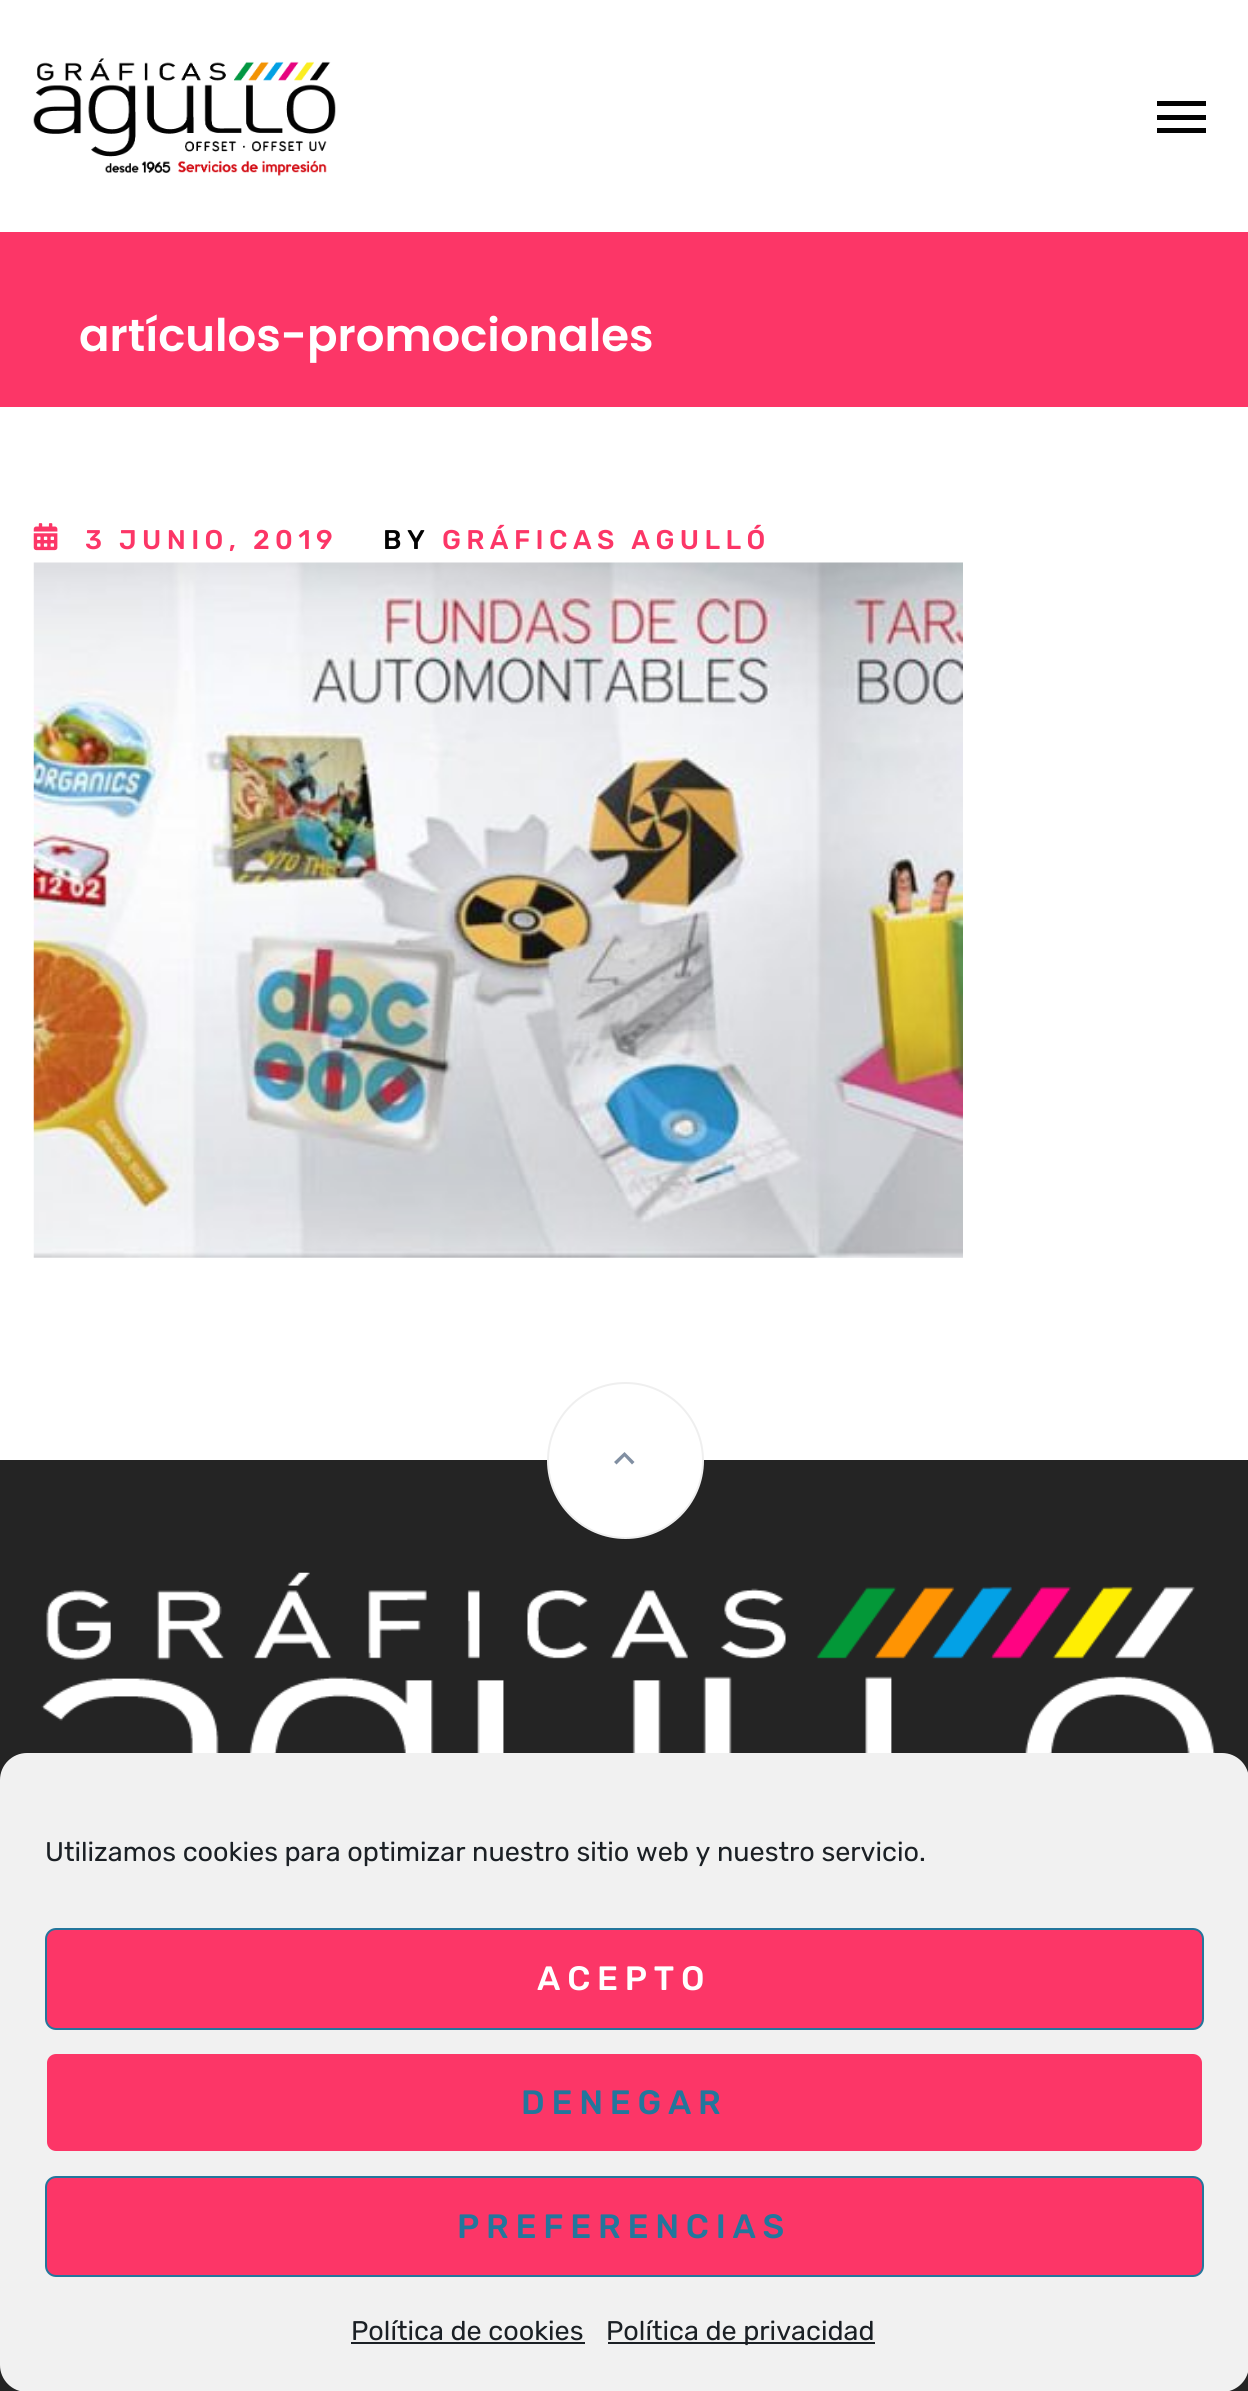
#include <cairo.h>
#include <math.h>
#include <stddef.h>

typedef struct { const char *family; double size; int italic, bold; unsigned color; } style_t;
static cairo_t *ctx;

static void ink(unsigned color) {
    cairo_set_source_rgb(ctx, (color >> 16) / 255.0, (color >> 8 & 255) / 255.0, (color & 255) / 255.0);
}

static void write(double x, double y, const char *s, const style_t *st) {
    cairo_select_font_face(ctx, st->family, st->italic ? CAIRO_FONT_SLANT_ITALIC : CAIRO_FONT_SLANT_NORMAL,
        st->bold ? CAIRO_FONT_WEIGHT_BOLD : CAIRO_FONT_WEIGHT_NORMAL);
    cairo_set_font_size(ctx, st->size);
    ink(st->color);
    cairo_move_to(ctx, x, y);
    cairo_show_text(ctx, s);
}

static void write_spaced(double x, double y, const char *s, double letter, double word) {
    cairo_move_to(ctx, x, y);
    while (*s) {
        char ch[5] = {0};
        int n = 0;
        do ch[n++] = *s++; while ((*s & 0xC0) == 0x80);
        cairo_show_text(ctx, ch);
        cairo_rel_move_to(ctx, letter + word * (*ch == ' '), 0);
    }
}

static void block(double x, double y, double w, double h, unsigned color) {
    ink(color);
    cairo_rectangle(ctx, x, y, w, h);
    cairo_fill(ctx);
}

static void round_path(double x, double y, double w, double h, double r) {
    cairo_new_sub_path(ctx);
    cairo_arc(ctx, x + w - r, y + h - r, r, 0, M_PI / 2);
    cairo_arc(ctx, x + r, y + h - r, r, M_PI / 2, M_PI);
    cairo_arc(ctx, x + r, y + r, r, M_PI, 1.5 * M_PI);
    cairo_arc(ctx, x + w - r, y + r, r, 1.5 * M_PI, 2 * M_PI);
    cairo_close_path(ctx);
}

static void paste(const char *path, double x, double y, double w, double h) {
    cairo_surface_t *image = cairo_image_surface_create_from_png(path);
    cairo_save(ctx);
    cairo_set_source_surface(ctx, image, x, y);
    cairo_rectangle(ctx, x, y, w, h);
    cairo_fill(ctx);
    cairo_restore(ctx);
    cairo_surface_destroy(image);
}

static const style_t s1 = {"Poppins SemiBold", 45, 0, 0, 0xffffff};
static const style_t s2 = {"Rubik", 27, 0, 0, 0x1b2025};

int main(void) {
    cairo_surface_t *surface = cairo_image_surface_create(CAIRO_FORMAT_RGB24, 1248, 2391);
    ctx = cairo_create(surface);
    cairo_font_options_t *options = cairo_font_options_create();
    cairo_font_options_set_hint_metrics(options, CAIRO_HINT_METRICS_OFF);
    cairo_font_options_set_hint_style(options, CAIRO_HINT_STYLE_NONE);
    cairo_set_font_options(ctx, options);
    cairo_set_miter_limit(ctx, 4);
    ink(0xffffff);
    cairo_paint(ctx);
    paste("pic1.png", 33, 58, 303, 118);
    block(1157, 101, 49, 5, 0x030303);
    block(1157, 115, 49, 5, 0x030303);
    block(1157, 128, 49, 5, 0x030303);
    block(0, 232, 1248, 175, 0xfc3667);
    write(79, 351, "artículos-promocionales", &s1);
    paste("pic2.png", 33, 523, 25, 28);
    cairo_select_font_face(ctx, "Rubik Medium", CAIRO_FONT_SLANT_NORMAL, CAIRO_FONT_WEIGHT_NORMAL);
    cairo_set_font_size(ctx, 27);
    ink(0xfc3667);
    write_spaced(85, 549, "3 JUNIO, 2019", 5.4, 0);
    ink(0x030303);
    write_spaced(383, 549, "BY", 5.4, 0);
    ink(0xfc3667);
    write_spaced(442, 549, "GRÁFICAS AGULLÓ", 5.4, 0);
    paste("pic3.png", 33, 562, 930, 696);
    block(0, 1460, 1248, 931, 0x242424);
    ink(0xffffff);
    cairo_arc(ctx, 625.5, 1460.5, 77.5, 0, 2 * M_PI);
    cairo_fill_preserve(ctx);
    ink(0xefefef);
    cairo_stroke(ctx);
    ink(0x818fa2);
    cairo_new_path(ctx);
    cairo_move_to(ctx, 624.5, 1452);
    cairo_line_to(ctx, 634.5, 1462);
    cairo_line_to(ctx, 632, 1464.5);
    cairo_line_to(ctx, 624.5, 1456.5);
    cairo_line_to(ctx, 616.5, 1464.5);
    cairo_line_to(ctx, 614, 1462);
    cairo_close_path(ctx);
    cairo_fill(ctx);
    paste("pic4.png", 41, 1572, 1174, 181);
    ink(0xf1f1f1);
    round_path(0, 1753, 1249, 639, 27);
    cairo_fill(ctx);
    write(45, 1861, "Utilizamos cookies para optimizar nuestro sitio web y nuestro servicio.", &s2);
    ink(0xfc3667);
    round_path(46, 1929, 1157, 100, 10);
    cairo_fill_preserve(ctx);
    ink(0x23769c);
    cairo_stroke(ctx);
    cairo_select_font_face(ctx, "Rubik Medium", CAIRO_FONT_SLANT_NORMAL, CAIRO_FONT_WEIGHT_NORMAL);
    cairo_set_font_size(ctx, 33.75);
    ink(0xffffff);
    write_spaced(537, 1990, "ACEPTO", 6.75, 0);
    ink(0xfc3667);
    round_path(46, 2053, 1157, 99, 10);
    cairo_fill_preserve(ctx);
    ink(0xf1f1f1);
    cairo_stroke(ctx);
    ink(0x23769c);
    write_spaced(521, 2114, "DENEGAR", 6.75, 0);
    ink(0xfc3667);
    round_path(46, 2177, 1157, 99, 10);
    cairo_fill_preserve(ctx);
    ink(0x23769c);
    cairo_stroke(ctx);
    write_spaced(457, 2238, "PREFERENCIAS", 6.75, 0);
    write(351, 2340, "Política de cookies", &s2);
    block(351, 2342, 234, 2, 0x1b2025);
    block(608, 2342, 267, 2, 0x1b2025);
    write(606, 2340, "Política de privacidad", &s2);
    cairo_surface_write_to_png(surface, "screenshot.png");
    cairo_font_options_destroy(options);
    cairo_destroy(ctx);
    cairo_surface_destroy(surface);
    return 0;
}
